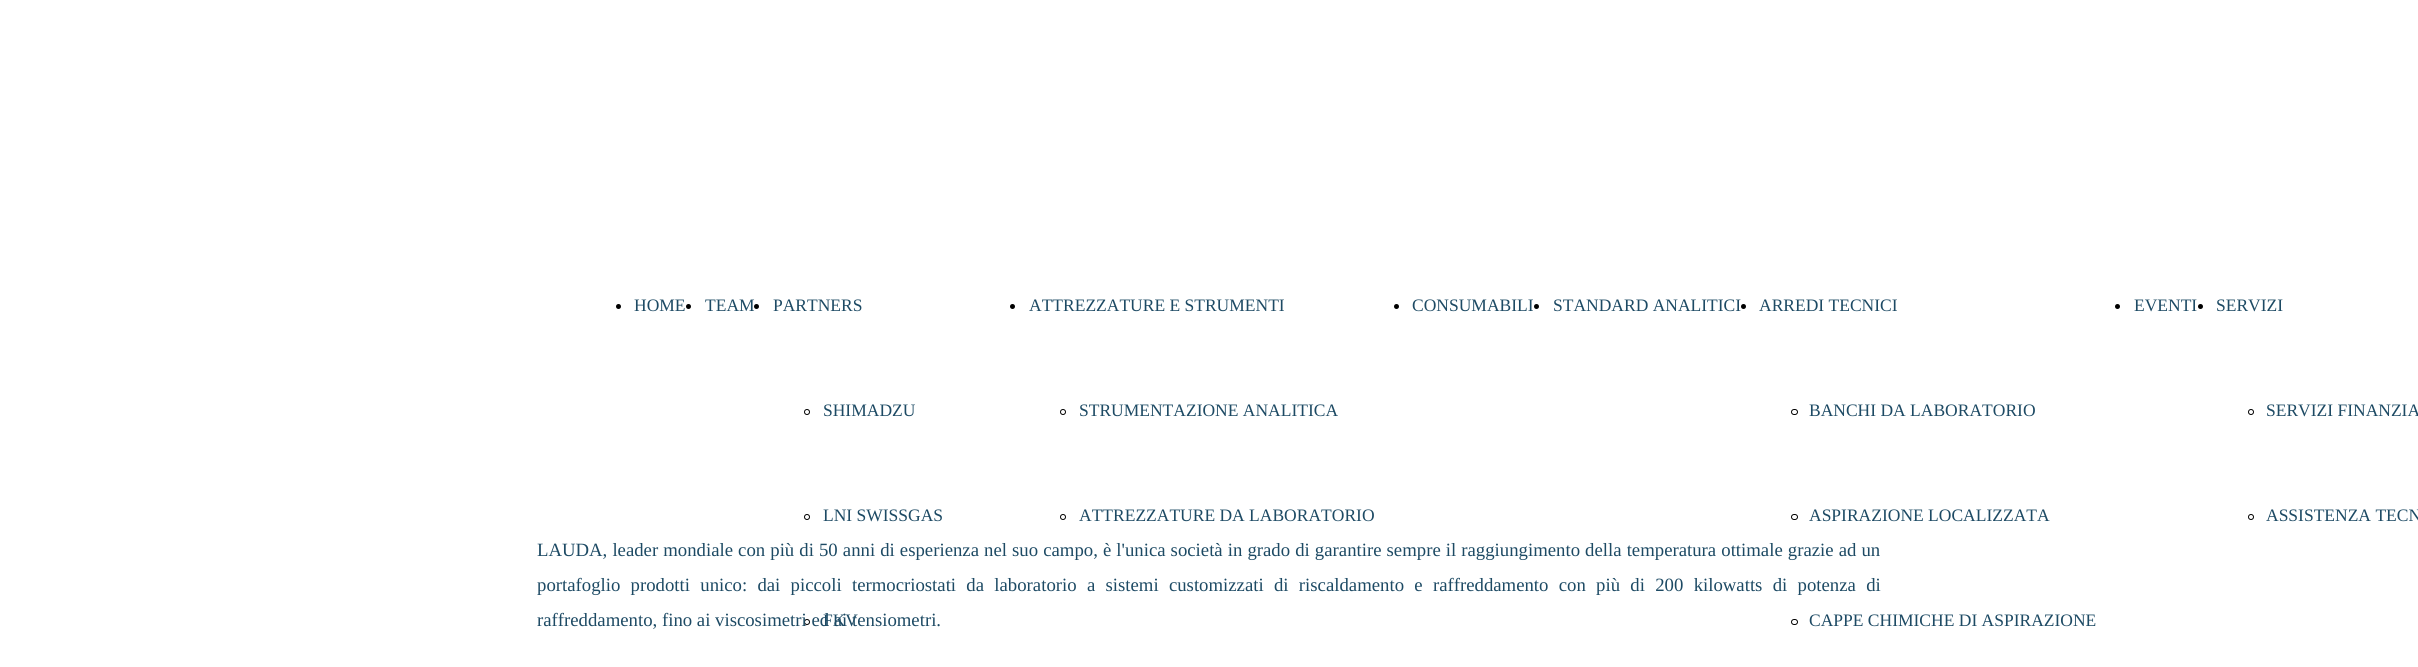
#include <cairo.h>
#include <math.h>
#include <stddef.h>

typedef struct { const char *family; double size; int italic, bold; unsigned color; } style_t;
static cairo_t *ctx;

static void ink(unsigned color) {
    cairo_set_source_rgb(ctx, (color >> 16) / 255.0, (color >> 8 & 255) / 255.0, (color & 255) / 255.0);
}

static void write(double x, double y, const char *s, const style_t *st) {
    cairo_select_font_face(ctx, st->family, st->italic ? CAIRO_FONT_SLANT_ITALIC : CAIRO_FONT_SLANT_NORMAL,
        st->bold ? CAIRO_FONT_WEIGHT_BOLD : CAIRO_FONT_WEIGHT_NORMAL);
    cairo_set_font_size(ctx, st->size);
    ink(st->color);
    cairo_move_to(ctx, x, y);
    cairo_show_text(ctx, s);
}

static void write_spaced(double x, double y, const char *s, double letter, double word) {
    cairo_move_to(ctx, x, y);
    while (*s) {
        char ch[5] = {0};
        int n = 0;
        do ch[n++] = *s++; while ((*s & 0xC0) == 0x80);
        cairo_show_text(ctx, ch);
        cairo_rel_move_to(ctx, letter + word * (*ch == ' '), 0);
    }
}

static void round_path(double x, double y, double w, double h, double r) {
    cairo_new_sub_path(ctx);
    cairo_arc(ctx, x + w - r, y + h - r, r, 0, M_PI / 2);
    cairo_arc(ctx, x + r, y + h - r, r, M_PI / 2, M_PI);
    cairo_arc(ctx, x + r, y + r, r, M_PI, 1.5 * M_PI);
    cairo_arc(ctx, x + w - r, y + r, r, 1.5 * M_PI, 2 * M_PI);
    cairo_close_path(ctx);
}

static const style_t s1 = {"Liberation Serif", 17.5, 0, 0, 0x1d4a64};
static const style_t s2 = {"Liberation Serif", 18.75, 0, 0, 0x1d4a64};

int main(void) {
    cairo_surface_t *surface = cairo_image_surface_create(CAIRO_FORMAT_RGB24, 2418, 667);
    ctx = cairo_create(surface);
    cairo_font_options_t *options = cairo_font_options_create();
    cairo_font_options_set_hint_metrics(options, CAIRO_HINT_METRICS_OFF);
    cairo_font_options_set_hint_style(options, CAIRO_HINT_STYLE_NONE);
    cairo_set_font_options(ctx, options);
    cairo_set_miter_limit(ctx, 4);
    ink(0xffffff);
    cairo_paint(ctx);
    ink(0x000000);
    cairo_arc(ctx, 618.5, 306.5, 2.5, 0, 2 * M_PI);
    cairo_fill(ctx);
    write(634, 311, "HOME", &s1);
    ink(0x000000);
    cairo_new_path(ctx);
    cairo_arc(ctx, 688.5, 306.5, 2.5, 0, 2 * M_PI);
    cairo_fill(ctx);
    write(705, 311, "TEAM", &s1);
    ink(0x000000);
    cairo_new_path(ctx);
    cairo_arc(ctx, 756.5, 306.5, 2.5, 0, 2 * M_PI);
    cairo_fill(ctx);
    write(773, 311, "PARTNERS", &s1);
    cairo_new_path(ctx);
    cairo_arc(ctx, 807, 412, 2.5, 0, 2 * M_PI);
    ink(0x000000);
    cairo_set_line_width(ctx, 1);
    cairo_stroke(ctx);
    write(823, 416, "SHIMADZU", &s1);
    cairo_new_path(ctx);
    cairo_arc(ctx, 807, 517, 2.5, 0, 2 * M_PI);
    ink(0x000000);
    cairo_stroke(ctx);
    write(823, 521, "LNI SWISSGAS", &s1);
    cairo_new_path(ctx);
    cairo_arc(ctx, 807, 622, 2.5, 0, 2 * M_PI);
    ink(0x000000);
    cairo_stroke(ctx);
    write(823, 626, "FKV", &s1);
    ink(0x000000);
    cairo_new_path(ctx);
    cairo_arc(ctx, 1012.5, 306.5, 2.5, 0, 2 * M_PI);
    cairo_fill(ctx);
    write(1029, 311, "ATTREZZATURE E STRUMENTI", &s1);
    cairo_new_path(ctx);
    cairo_arc(ctx, 1063, 412, 2.5, 0, 2 * M_PI);
    ink(0x000000);
    cairo_stroke(ctx);
    write(1079, 416, "STRUMENTAZIONE ANALITICA", &s1);
    cairo_new_path(ctx);
    cairo_arc(ctx, 1063, 517, 2.5, 0, 2 * M_PI);
    ink(0x000000);
    cairo_stroke(ctx);
    write(1079, 521, "ATTREZZATURE DA LABORATORIO", &s1);
    ink(0x000000);
    cairo_new_path(ctx);
    cairo_arc(ctx, 1396.5, 306.5, 2.5, 0, 2 * M_PI);
    cairo_fill(ctx);
    write(1412, 311, "CONSUMABILI", &s1);
    ink(0x000000);
    cairo_new_path(ctx);
    cairo_arc(ctx, 1536.5, 306.5, 2.5, 0, 2 * M_PI);
    cairo_fill(ctx);
    write(1553, 311, "STANDARD ANALITICI", &s1);
    ink(0x000000);
    cairo_new_path(ctx);
    cairo_arc(ctx, 1743.5, 306.5, 2.5, 0, 2 * M_PI);
    cairo_fill(ctx);
    write(1759, 311, "ARREDI TECNICI", &s1);
    round_path(1791.5, 409.5, 6, 5, 2.5);
    ink(0x000000);
    cairo_stroke(ctx);
    write(1809, 416, "BANCHI DA LABORATORIO", &s1);
    round_path(1791.5, 514.5, 6, 5, 2.5);
    ink(0x000000);
    cairo_stroke(ctx);
    write(1809, 521, "ASPIRAZIONE LOCALIZZATA", &s1);
    round_path(1791.5, 619.5, 6, 5, 2.5);
    ink(0x000000);
    cairo_stroke(ctx);
    write(1809, 626, "CAPPE CHIMICHE DI ASPIRAZIONE", &s1);
    ink(0x000000);
    cairo_new_path(ctx);
    cairo_arc(ctx, 2117.5, 306.5, 2.5, 0, 2 * M_PI);
    cairo_fill(ctx);
    write(2134, 311, "EVENTI", &s1);
    ink(0x000000);
    cairo_new_path(ctx);
    cairo_arc(ctx, 2200.5, 306.5, 2.5, 0, 2 * M_PI);
    cairo_fill(ctx);
    write(2216, 311, "SERVIZI", &s1);
    cairo_new_path(ctx);
    cairo_arc(ctx, 2251, 412, 2.5, 0, 2 * M_PI);
    ink(0x000000);
    cairo_stroke(ctx);
    write(2266, 416, "SERVIZI FINANZIA", &s1);
    cairo_new_path(ctx);
    cairo_arc(ctx, 2251, 517, 2.5, 0, 2 * M_PI);
    ink(0x000000);
    cairo_stroke(ctx);
    write(2266, 521, "ASSISTENZA TECN", &s1);
    cairo_set_font_size(ctx, 18.75);
    write_spaced(537, 556, "LAUDA, leader mondiale con più di 50 anni di esperienza nel suo campo, è l'unica società in grado di garantire sempre il raggiungimento della temperatura ottimale grazie ad un", 0, 0.4);
    write_spaced(537, 591, "portafoglio prodotti unico: dai piccoli termocriostati da laboratorio a sistemi customizzati di riscaldamento e raffreddamento con più di 200 kilowatts di potenza di", 0, 5.6);
    write(537, 626, "raffreddamento, fino ai viscosimetri ed ai tensiometri.", &s2);
    cairo_surface_write_to_png(surface, "screenshot.png");
    cairo_font_options_destroy(options);
    cairo_destroy(ctx);
    cairo_surface_destroy(surface);
    return 0;
}
